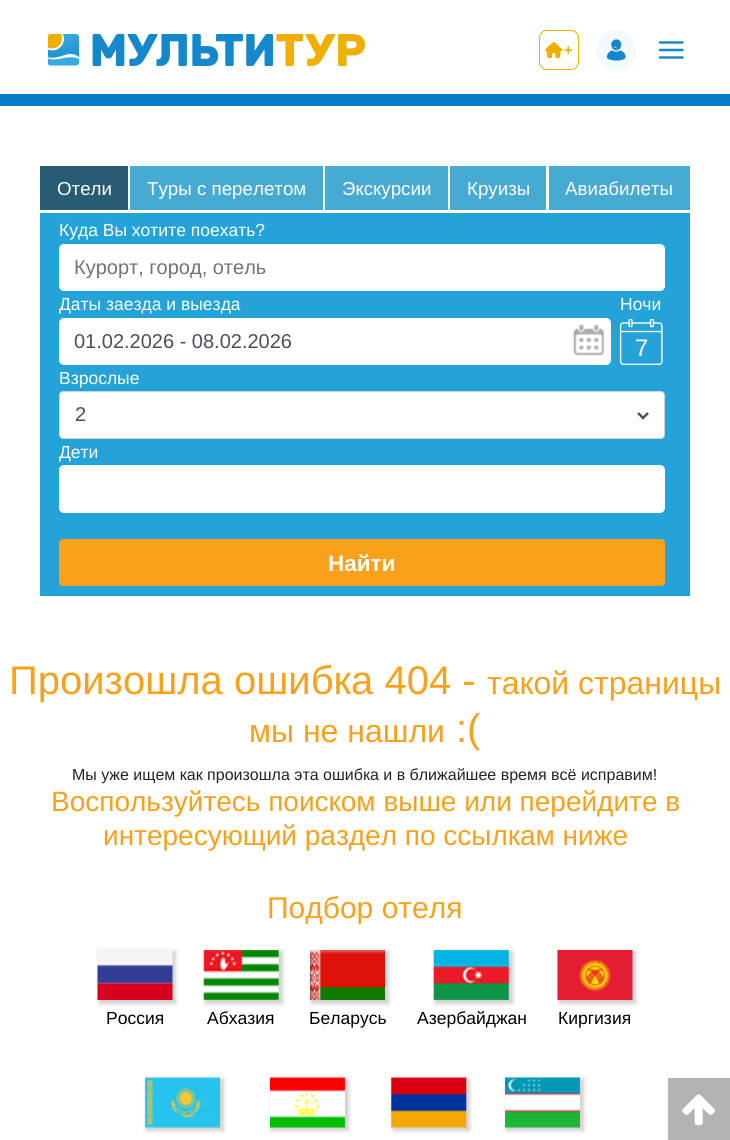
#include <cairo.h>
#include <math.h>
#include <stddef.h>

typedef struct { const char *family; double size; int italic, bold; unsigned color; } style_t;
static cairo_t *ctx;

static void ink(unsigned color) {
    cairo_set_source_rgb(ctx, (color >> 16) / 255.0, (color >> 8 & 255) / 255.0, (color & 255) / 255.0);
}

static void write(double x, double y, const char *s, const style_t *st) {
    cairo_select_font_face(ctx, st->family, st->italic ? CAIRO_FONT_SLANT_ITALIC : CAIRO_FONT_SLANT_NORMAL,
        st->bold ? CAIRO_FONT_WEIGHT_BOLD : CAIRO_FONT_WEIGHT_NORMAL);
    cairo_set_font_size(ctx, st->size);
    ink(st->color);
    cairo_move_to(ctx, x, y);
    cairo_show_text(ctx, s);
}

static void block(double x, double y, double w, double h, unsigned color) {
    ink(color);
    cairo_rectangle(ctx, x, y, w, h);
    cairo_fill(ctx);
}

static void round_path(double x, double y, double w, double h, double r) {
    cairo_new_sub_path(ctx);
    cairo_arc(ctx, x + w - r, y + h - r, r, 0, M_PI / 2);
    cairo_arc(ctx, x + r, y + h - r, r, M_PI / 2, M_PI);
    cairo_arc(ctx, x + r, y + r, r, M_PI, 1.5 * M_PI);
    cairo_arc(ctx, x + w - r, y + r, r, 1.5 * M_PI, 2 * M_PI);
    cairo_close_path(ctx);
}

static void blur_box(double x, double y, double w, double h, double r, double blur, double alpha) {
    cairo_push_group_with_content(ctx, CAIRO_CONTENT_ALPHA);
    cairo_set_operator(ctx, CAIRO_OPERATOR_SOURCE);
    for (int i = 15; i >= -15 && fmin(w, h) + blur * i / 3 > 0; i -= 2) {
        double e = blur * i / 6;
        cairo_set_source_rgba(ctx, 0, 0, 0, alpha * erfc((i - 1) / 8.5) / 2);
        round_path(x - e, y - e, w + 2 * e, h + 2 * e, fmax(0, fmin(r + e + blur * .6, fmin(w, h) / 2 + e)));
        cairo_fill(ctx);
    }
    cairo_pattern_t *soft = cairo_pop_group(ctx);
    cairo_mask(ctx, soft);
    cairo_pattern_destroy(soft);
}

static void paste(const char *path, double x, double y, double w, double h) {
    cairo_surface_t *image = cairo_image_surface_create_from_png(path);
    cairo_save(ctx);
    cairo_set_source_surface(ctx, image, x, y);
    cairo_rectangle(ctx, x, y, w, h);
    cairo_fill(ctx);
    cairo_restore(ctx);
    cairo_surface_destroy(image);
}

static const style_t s1 = {"Liberation Sans", 18.75, 0, 0, 0xffffff};
static const style_t s2 = {"Liberation Sans", 17.5, 0, 0, 0xffffff};
static const style_t s3 = {"Liberation Sans", 20, 0, 0, 0x6c757d};
static const style_t s4 = {"Liberation Sans", 20, 0, 0, 0x495057};
static const style_t s5 = {"Liberation Sans", 24, 0, 0, 0xffffff};
static const style_t s6 = {"Liberation Sans", 22.5, 0, 1, 0xffffff};
static const style_t s7 = {"Liberation Sans", 40, 0, 0, 0xf9a11b};
static const style_t s8 = {"Liberation Sans", 32, 0, 0, 0xf9a11b};
static const style_t s9 = {"Liberation Sans", 16, 0, 0, 0x212529};
static const style_t s10 = {"Liberation Sans", 28, 0, 0, 0xf9a11b};
static const style_t s11 = {"Liberation Sans", 30, 0, 0, 0xf9a11b};
static const style_t s12 = {"Liberation Sans", 17.5, 0, 0, 0x000000};

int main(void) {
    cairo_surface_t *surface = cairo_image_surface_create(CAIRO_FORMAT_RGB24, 730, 1140);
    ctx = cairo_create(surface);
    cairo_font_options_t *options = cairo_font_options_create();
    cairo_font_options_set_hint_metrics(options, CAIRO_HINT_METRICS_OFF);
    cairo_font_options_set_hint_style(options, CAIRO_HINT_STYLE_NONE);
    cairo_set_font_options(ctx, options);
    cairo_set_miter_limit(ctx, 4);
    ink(0xffffff);
    cairo_paint(ctx);
    paste("pic1.png", 48, 34, 317, 32);
    paste("pic2.png", 539, 30, 40, 40);
    ink(0xf3f9fc);
    cairo_arc(ctx, 616, 50, 20, 0, 2 * M_PI);
    cairo_fill(ctx);
    paste("pic3.png", 606, 39, 20, 22);
    paste("pic4.png", 658, 41, 26, 18);
    block(0, 94, 730, 12, 0x047dc4);
    block(40, 166, 88, 44, 0x275c72);
    write(57, 195, "Отели", &s1);
    block(130, 166, 193, 44, 0x47aad3);
    write(147, 195, "Туры с перелетом", &s1);
    block(325, 166, 123, 44, 0x47aad3);
    write(342, 195, "Экскурсии", &s1);
    block(450, 166, 96, 44, 0x47aad3);
    write(467, 195, "Круизы", &s1);
    block(549, 166, 141, 44, 0x47aad3);
    write(565, 195, "Авиабилеты", &s1);
    block(40, 213, 650, 383, 0x24a3d8);
    write(59, 236, "Куда Вы хотите поехать?", &s2);
    round_path(59, 244, 606, 47, 5);
    cairo_fill(ctx);
    write(74, 274, "Курорт, город, отель", &s3);
    cairo_save(ctx);
    cairo_rectangle(ctx, 59, 291, 552, 27);
    cairo_clip(ctx);
    write(59, 310, "Даты заезда и выезда", &s2);
    cairo_restore(ctx);
    ink(0xffffff);
    round_path(59, 318, 552, 47, 5);
    cairo_fill(ctx);
    paste("pic5.png", 573, 324, 31, 32);
    write(74, 348, "01.02.2026 - 08.02.2026", &s4);
    write(620, 310, "Ночи", &s2);
    paste("pic6.png", 619, 319, 44, 46);
    write(635, 356, "7", &s5);
    write(59, 384, "Взрослые", &s2);
    round_path(59, 391, 606, 48, 5);
    cairo_fill(ctx);
    cairo_new_path(ctx);
    cairo_move_to(ctx, 638, 413);
    cairo_line_to(ctx, 643, 418);
    cairo_line_to(ctx, 648, 413);
    ink(0x495057);
    cairo_set_line_width(ctx, 2.5);
    cairo_stroke(ctx);
    round_path(59.5, 391.5, 605, 47, 4.5);
    ink(0xced4da);
    cairo_set_line_width(ctx, 1);
    cairo_stroke(ctx);
    write(75, 421, "2", &s4);
    cairo_save(ctx);
    cairo_rectangle(ctx, 59, 439, 606, 26);
    cairo_clip(ctx);
    write(59, 458, "Дети", &s2);
    cairo_restore(ctx);
    ink(0xffffff);
    round_path(59, 465, 606, 48, 5);
    cairo_fill(ctx);
    ink(0xf9a11b);
    round_path(59, 539, 606, 47, 4);
    cairo_fill(ctx);
    write(328, 571, "Найти", &s6);
    write(9, 694, "Произошла ошибка 404 -", &s7);
    write(487, 694, "такой страницы", &s8);
    write(249, 742, "мы не нашли", &s8);
    write(456, 742, ":(", &s7);
    write(72, 780, "Мы уже ищем как произошла эта ошибка и в ближайшее время всё исправим!", &s9);
    write(51, 811, "Воспользуйтесь поиском выше или перейдите в", &s10);
    write(103, 845, "интересующий раздел по ссылкам ниже", &s10);
    write(267, 918, "Подбор отеля", &s11);
    ink(0x646464);
    blur_box(99, 951, 77, 53, 0, 2, 0.3);
    paste("pic7.png", 97, 950, 76, 50);
    write(106, 1024, "Россия", &s12);
    ink(0x646464);
    blur_box(205, 951, 78, 53, 0, 2, 0.3);
    paste("pic8.png", 203, 950, 76, 50);
    write(207, 1024, "Абхазия", &s12);
    ink(0x646464);
    blur_box(311, 951, 78, 53, 0, 2, 0.3);
    paste("pic9.png", 310, 950, 75, 50);
    write(309, 1024, "Беларусь", &s12);
    ink(0x646464);
    blur_box(435, 951, 78, 53, 0, 2, 0.3);
    paste("pic10.png", 433, 950, 76, 50);
    write(417, 1024, "Азербайджан", &s12);
    ink(0x646464);
    blur_box(559, 951, 77, 53, 0, 2, 0.3);
    paste("pic11.png", 557, 950, 76, 50);
    write(558, 1024, "Киргизия", &s12);
    ink(0x646464);
    blur_box(146, 1079, 78, 52, 0, 2, 0.3);
    paste("pic12.png", 145, 1077, 75, 51);
    blur_box(271, 1079, 78, 52, 0, 2, 0.3);
    paste("pic13.png", 270, 1077, 75, 51);
    blur_box(393, 1079, 77, 52, 0, 2, 0.3);
    paste("pic14.png", 391, 1077, 76, 51);
    blur_box(506, 1079, 78, 52, 0, 2, 0.3);
    paste("pic15.png", 505, 1077, 75, 51);
    block(668, 1078, 62, 62, 0xb3b3b3);
    paste("pic16.png", 682, 1094, 33, 32);
    cairo_surface_write_to_png(surface, "screenshot.png");
    cairo_font_options_destroy(options);
    cairo_destroy(ctx);
    cairo_surface_destroy(surface);
    return 0;
}
